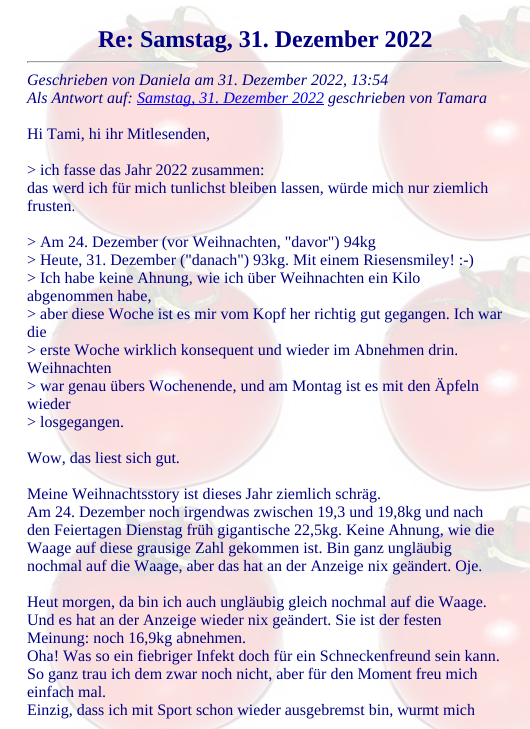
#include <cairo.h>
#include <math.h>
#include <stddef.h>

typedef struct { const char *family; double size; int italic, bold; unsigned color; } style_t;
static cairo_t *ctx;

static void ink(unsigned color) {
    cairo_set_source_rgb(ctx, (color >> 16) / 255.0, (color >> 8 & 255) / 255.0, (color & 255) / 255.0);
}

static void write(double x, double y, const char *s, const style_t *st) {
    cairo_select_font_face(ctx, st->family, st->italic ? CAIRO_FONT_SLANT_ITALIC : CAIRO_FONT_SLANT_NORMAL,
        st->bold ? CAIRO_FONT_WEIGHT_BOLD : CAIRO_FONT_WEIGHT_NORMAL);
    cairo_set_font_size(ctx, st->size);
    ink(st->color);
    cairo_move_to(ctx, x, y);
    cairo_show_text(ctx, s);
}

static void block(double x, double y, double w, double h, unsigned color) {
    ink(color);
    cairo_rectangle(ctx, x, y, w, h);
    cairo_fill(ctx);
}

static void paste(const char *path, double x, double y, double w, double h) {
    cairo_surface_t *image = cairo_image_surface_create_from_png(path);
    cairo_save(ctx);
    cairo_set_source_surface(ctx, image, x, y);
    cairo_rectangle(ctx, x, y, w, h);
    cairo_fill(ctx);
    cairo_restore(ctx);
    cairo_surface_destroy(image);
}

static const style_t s1 = {"Liberation Serif", 24, 0, 1, 0x000080};
static const style_t s2 = {"Liberation Serif", 16, 1, 0, 0x000080};
static const style_t s3 = {"Liberation Serif", 16, 1, 0, 0x0000ee};
static const style_t s4 = {"Liberation Serif", 16, 0, 0, 0x000080};

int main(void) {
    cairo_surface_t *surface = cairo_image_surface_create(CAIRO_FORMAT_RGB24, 530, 729);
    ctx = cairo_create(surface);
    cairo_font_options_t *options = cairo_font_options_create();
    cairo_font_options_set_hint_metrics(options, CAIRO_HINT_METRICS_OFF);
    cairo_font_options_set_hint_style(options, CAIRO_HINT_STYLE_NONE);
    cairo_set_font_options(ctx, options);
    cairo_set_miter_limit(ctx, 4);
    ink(0xffffff);
    cairo_paint(ctx);
    paste("pic1.png", 45, 5, 485, 724);
    write(98, 47, "Re: Samstag, 31. Dezember 2022", &s1);
    block(27, 61, 476, 1, 0x9f9f9f);
    block(502, 61, 1, 2, 0xeeeeee);
    block(27, 62, 476, 1, 0xeeeeee);
    block(27, 61, 1, 2, 0x9f9f9f);
    write(27, 85, "Geschrieben von Daniela am 31. Dezember 2022, 13:54", &s2);
    write(27, 103, "Als Antwort auf:", &s2);
    block(137, 104, 187, 1, 0x0000ee);
    write(137, 103, "Samstag, 31. Dezember 2022", &s3);
    write(328, 103, "geschrieben von Tamara", &s2);
    write(27, 139, "Hi Tami, hi ihr Mitlesenden,", &s4);
    write(27, 175, "> ich fasse das Jahr 2022 zusammen:", &s4);
    write(27, 193, "das werd ich für mich tunlichst bleiben lassen, würde mich nur ziemlich", &s4);
    write(27, 211, "frusten.", &s4);
    write(27, 247, "> Am 24. Dezember (vor Weihnachten, \"davor\") 94kg", &s4);
    write(27, 265, "> Heute, 31. Dezember (\"danach\") 93kg. Mit einem Riesensmiley! :-)", &s4);
    write(27, 283, "> Ich habe keine Ahnung, wie ich über Weihnachten ein Kilo", &s4);
    write(27, 301, "abgenommen habe,", &s4);
    write(27, 319, "> aber diese Woche ist es mir vom Kopf her richtig gut gegangen. Ich war", &s4);
    write(27, 337, "die", &s4);
    write(27, 355, "> erste Woche wirklich konsequent und wieder im Abnehmen drin.", &s4);
    write(27, 373, "Weihnachten", &s4);
    write(27, 391, "> war genau übers Wochenende, und am Montag ist es mit den Äpfeln", &s4);
    write(27, 409, "wieder", &s4);
    write(27, 427, "> losgegangen.", &s4);
    write(27, 463, "Wow, das liest sich gut.", &s4);
    write(27, 499, "Meine Weihnachtsstory ist dieses Jahr ziemlich schräg.", &s4);
    write(27, 517, "Am 24. Dezember noch irgendwas zwischen 19,3 und 19,8kg und nach", &s4);
    write(27, 535, "den Feiertagen Dienstag früh gigantische 22,5kg. Keine Ahnung, wie die", &s4);
    write(27, 553, "Waage auf diese grausige Zahl gekommen ist. Bin ganz ungläubig", &s4);
    write(27, 571, "nochmal auf die Waage, aber das hat an der Anzeige nix geändert. Oje.", &s4);
    write(27, 607, "Heut morgen, da bin ich auch ungläubig gleich nochmal auf die Waage.", &s4);
    write(27, 625, "Und es hat an der Anzeige wieder nix geändert. Sie ist der festen", &s4);
    write(27, 643, "Meinung: noch 16,9kg abnehmen.", &s4);
    write(27, 661, "Oha! Was so ein fiebriger Infekt doch für ein Schneckenfreund sein kann.", &s4);
    write(27, 679, "So ganz trau ich dem zwar noch nicht, aber für den Moment freu mich", &s4);
    write(27, 697, "einfach mal.", &s4);
    write(27, 715, "Einzig, dass ich mit Sport schon wieder ausgebremst bin, wurmt mich", &s4);
    cairo_surface_write_to_png(surface, "screenshot.png");
    cairo_font_options_destroy(options);
    cairo_destroy(ctx);
    cairo_surface_destroy(surface);
    return 0;
}
